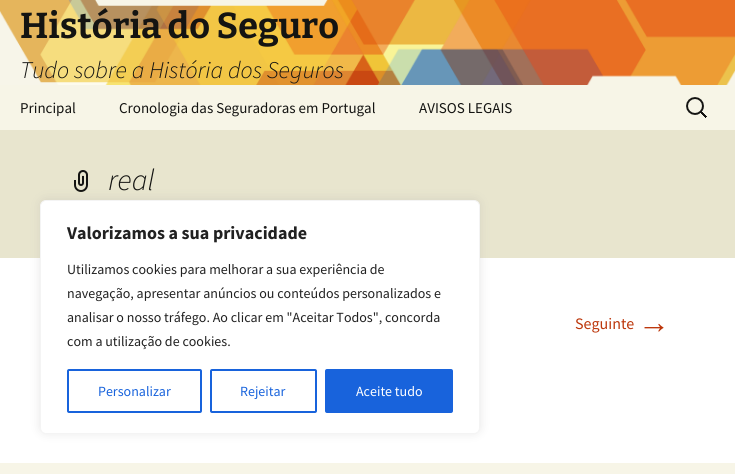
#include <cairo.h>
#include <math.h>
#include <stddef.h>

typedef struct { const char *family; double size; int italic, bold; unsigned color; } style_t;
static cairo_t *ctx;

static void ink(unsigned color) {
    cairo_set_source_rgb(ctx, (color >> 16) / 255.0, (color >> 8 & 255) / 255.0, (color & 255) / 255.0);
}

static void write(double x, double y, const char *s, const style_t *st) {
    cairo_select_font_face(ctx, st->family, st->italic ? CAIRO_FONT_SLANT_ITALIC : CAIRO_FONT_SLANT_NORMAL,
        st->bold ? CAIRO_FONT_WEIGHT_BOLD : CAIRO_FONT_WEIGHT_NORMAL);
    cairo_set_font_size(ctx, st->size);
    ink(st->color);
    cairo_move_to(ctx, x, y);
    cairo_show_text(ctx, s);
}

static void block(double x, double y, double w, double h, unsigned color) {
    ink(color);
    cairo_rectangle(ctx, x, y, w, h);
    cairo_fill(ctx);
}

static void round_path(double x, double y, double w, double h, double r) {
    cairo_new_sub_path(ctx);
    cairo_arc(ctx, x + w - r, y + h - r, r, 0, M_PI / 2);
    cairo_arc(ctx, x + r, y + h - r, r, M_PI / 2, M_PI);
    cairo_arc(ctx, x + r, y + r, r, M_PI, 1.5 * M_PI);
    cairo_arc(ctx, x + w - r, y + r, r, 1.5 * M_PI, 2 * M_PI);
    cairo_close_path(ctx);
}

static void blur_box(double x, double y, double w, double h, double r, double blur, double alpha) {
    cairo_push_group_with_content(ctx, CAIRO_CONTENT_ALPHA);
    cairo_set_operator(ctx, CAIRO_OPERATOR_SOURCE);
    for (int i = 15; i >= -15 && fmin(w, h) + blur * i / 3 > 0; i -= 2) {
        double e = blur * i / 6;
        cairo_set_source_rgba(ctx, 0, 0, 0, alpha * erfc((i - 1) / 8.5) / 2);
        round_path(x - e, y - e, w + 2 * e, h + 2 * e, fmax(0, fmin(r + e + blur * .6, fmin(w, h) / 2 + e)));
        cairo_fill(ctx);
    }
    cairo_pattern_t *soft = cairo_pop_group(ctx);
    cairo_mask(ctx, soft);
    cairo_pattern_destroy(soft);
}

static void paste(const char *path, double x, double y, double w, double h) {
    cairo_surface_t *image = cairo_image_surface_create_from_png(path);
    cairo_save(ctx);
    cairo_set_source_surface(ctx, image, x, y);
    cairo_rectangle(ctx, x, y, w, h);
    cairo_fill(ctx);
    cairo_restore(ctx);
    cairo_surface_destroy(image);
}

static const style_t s1 = {"Bitter Thin", 36, 0, 0, 0x141412};
static const style_t s2 = {"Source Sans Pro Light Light", 24, 1, 0, 0x141412};
static const style_t s3 = {"Source Sans Pro", 15, 0, 0, 0x141412};
static const style_t s4 = {"Source Sans Pro Light Light", 30, 1, 0, 0x141412};
static const style_t s5 = {"Source Sans Pro", 16, 0, 0, 0xbc360a};
static const style_t s6 = {"Liberation Sans", 32, 0, 0, 0xbc360a};
static const style_t s7 = {"Source Sans Pro", 18, 0, 1, 0x212121};
static const style_t s8 = {"Source Sans Pro", 14, 0, 0, 0x212121};
static const style_t s9 = {"Source Sans Pro", 14, 0, 0, 0x1863dc};
static const style_t s10 = {"Source Sans Pro", 14, 0, 0, 0xffffff};

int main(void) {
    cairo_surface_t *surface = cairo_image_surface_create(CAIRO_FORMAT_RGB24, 735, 474);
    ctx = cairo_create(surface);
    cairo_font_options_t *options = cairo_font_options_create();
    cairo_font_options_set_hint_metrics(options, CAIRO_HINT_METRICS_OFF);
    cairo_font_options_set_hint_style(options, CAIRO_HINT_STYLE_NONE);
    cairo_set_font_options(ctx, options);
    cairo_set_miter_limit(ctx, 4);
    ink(0xffffff);
    cairo_paint(ctx);
    paste("pic1.png", 0, 0, 735, 85);
    write(20, 38, "História do Seguro", &s1);
    write(20, 78, "Tudo sobre a História dos Seguros", &s2);
    block(0, 85, 735, 45, 0xf7f5e7);
    write(20, 113, "Principal", &s3);
    write(119, 113, "Cronologia das Seguradoras em Portugal", &s3);
    write(419, 113, "AVISOS LEGAIS", &s3);
    paste("pic2.png", 686, 97, 21, 21);
    block(0, 130, 735, 128, 0xe8e5ce);
    paste("pic3.png", 74, 170, 14, 22);
    write(108, 190, "real", &s4);
    write(575, 329, "Seguinte", &s5);
    write(638, 333, "→", &s6);
    block(0, 463, 735, 11, 0xf7f5e7);
    ink(0xacabab);
    blur_box(40, 199, 440, 234, 6, 5, 0.3);
    ink(0xffffff);
    round_path(40.5, 200.5, 439, 233, 5.5);
    cairo_fill_preserve(ctx);
    ink(0xf4f4f4);
    cairo_set_line_width(ctx, 1);
    cairo_stroke(ctx);
    write(67, 239, "Valorizamos a sua privacidade", &s7);
    write(67, 274, "Utilizamos cookies para melhorar a sua experiência de", &s8);
    write(67, 298, "navegação, apresentar anúncios ou conteúdos personalizados e", &s8);
    write(67, 322, "analisar o nosso tráfego. Ao clicar em \"Aceitar Todos\", concorda", &s8);
    write(67, 346, "com a utilização de cookies.", &s8);
    round_path(68, 370, 133, 42, 1);
    ink(0x1863dc);
    cairo_set_line_width(ctx, 2);
    cairo_stroke(ctx);
    write(98, 396, "Personalizar", &s9);
    round_path(211, 370, 105, 42, 1);
    cairo_stroke(ctx);
    write(240, 396, "Rejeitar", &s9);
    round_path(326, 370, 126, 42, 1);
    cairo_fill_preserve(ctx);
    cairo_stroke(ctx);
    write(356, 396, "Aceite tudo", &s10);
    cairo_surface_write_to_png(surface, "screenshot.png");
    cairo_font_options_destroy(options);
    cairo_destroy(ctx);
    cairo_surface_destroy(surface);
    return 0;
}
